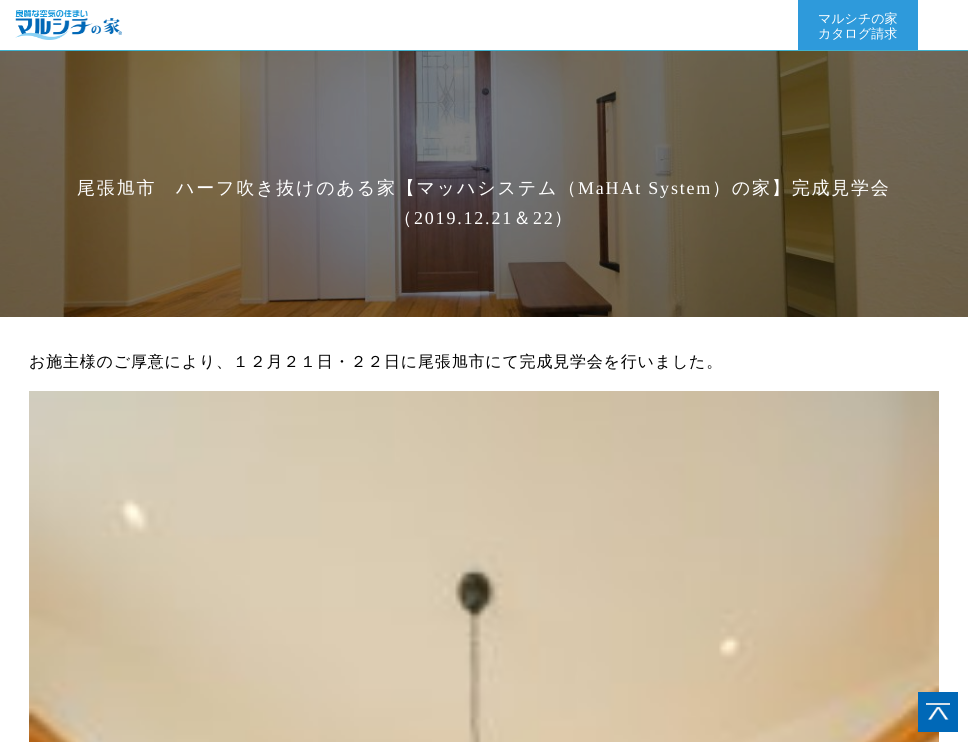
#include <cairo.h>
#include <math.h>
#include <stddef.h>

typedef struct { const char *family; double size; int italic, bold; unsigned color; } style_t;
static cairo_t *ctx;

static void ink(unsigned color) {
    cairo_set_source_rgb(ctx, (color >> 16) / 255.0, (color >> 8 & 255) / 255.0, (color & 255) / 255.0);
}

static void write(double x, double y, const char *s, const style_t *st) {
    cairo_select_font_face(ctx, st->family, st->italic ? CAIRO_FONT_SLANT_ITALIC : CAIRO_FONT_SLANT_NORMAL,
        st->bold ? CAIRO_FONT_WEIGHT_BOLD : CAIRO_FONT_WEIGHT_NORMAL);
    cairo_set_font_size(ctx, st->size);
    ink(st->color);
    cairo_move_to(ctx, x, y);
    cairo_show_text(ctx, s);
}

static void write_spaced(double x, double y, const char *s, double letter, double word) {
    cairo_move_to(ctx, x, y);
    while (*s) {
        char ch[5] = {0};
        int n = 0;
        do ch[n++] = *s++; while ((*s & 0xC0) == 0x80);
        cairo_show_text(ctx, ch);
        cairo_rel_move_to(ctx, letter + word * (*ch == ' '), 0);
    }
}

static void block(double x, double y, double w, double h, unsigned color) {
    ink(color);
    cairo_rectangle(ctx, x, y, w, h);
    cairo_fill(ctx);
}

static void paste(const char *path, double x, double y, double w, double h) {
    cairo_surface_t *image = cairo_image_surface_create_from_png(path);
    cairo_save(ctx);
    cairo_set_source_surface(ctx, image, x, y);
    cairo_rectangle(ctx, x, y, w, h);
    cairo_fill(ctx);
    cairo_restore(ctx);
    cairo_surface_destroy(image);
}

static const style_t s1 = {"WenQuanYi Zen Hei Medium", 13, 0, 0, 0xffffff};

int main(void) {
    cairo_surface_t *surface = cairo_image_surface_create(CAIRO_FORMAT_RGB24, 968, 742);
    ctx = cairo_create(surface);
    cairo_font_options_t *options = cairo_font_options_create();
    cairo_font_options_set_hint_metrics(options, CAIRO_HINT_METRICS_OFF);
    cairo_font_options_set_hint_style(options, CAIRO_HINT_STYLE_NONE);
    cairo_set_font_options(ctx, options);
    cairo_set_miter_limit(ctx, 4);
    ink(0xffffff);
    cairo_paint(ctx);
    block(0, 50, 968, 1, 0x3eb2ce);
    paste("pic1.png", 15, 10, 107, 30);
    block(798, 0, 120, 50, 0x2e9adb);
    write(818, 23, "マルシチの家", &s1);
    write(818, 38, "カタログ請求", &s1);
    paste("pic2.png", 0, 51, 968, 266);
    cairo_set_font_size(ctx, 18);
    write_spaced(77, 194, "尾張旭市　ハーフ吹き抜けのある家【マッハシステム（", 1.8, 0);
    cairo_select_font_face(ctx, "Liberation Serif", CAIRO_FONT_SLANT_NORMAL, CAIRO_FONT_WEIGHT_NORMAL);
    write_spaced(578, 194, "MaHAt System", 1.8, 0);
    cairo_select_font_face(ctx, "WenQuanYi Zen Hei Medium", CAIRO_FONT_SLANT_NORMAL, CAIRO_FONT_WEIGHT_NORMAL);
    write_spaced(712, 194, "）の家】完成見学会", 1.8, 0);
    write_spaced(394, 224, "（", 1.8, 0);
    cairo_select_font_face(ctx, "Liberation Serif", CAIRO_FONT_SLANT_NORMAL, CAIRO_FONT_WEIGHT_NORMAL);
    write_spaced(414, 224, "2019.12.21", 1.8, 0);
    cairo_select_font_face(ctx, "WenQuanYi Zen Hei Medium", CAIRO_FONT_SLANT_NORMAL, CAIRO_FONT_WEIGHT_NORMAL);
    write_spaced(513, 224, "＆", 1.8, 0);
    cairo_select_font_face(ctx, "Liberation Serif", CAIRO_FONT_SLANT_NORMAL, CAIRO_FONT_WEIGHT_NORMAL);
    write_spaced(533, 224, "22", 1.8, 0);
    cairo_select_font_face(ctx, "WenQuanYi Zen Hei Medium", CAIRO_FONT_SLANT_NORMAL, CAIRO_FONT_WEIGHT_NORMAL);
    write_spaced(554, 224, "）", 1.8, 0);
    cairo_set_font_size(ctx, 16);
    ink(0x000000);
    write_spaced(29, 367, "お施主様のご厚意により、１２月２１日・２２日に尾張旭市にて完成見学会を行いました。", 0.8, 0);
    paste("pic3.png", 29, 391, 910, 351);
    paste("pic4.png", 918, 692, 40, 40);
    cairo_surface_write_to_png(surface, "screenshot.png");
    cairo_font_options_destroy(options);
    cairo_destroy(ctx);
    cairo_surface_destroy(surface);
    return 0;
}
